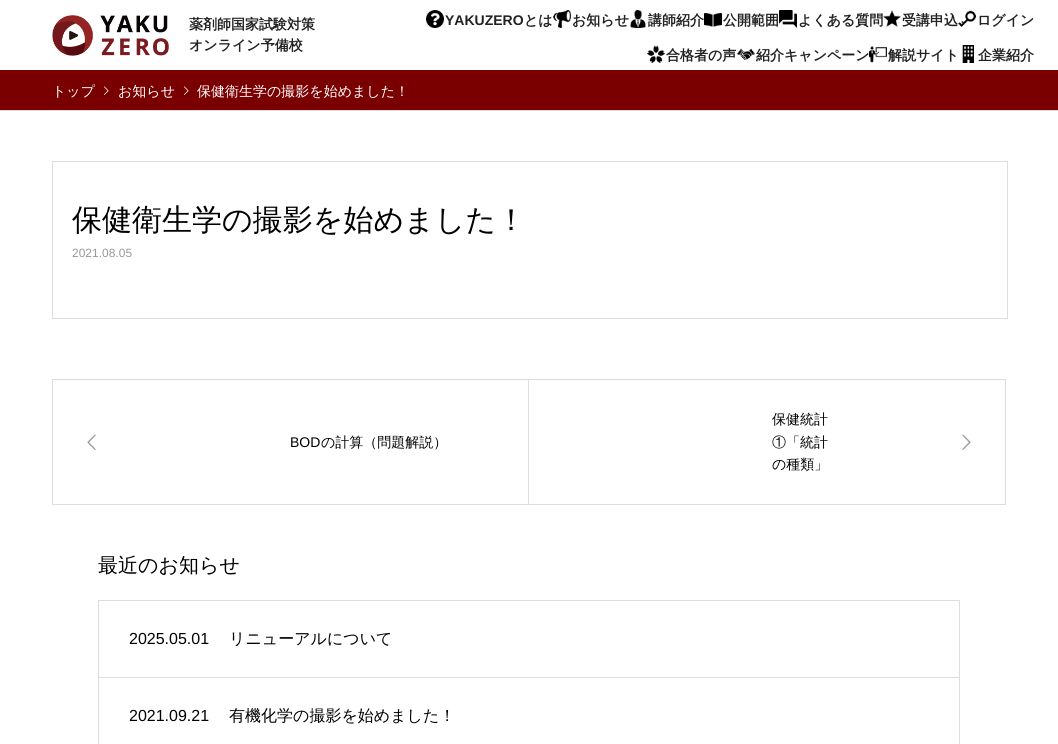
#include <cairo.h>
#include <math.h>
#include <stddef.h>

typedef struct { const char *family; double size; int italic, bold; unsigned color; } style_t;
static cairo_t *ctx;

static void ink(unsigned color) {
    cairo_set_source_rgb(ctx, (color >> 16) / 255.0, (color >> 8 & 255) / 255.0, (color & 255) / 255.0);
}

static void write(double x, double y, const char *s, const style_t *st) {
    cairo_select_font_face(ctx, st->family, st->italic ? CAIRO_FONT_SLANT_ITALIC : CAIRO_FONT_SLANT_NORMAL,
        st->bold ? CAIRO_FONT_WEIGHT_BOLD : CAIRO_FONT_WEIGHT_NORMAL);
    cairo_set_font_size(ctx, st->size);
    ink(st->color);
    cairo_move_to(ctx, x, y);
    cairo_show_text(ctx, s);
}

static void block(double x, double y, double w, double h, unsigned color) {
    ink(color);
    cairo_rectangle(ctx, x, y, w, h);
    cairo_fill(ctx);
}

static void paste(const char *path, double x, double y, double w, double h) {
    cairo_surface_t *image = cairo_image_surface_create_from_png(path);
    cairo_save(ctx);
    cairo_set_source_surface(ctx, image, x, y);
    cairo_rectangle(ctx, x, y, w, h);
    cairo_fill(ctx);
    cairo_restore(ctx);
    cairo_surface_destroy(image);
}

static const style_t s1 = {"WenQuanYi Zen Hei", 14, 0, 1, 0x222222};
static const style_t s2 = {"Liberation Sans", 14, 0, 1, 0x222222};
static const style_t s3 = {"WenQuanYi Zen Hei Medium", 14, 0, 0, 0xffffff};
static const style_t s4 = {"WenQuanYi Zen Hei Medium", 30, 0, 0, 0x000000};
static const style_t s5 = {"Liberation Sans", 12, 0, 0, 0x999999};
static const style_t s6 = {"Liberation Sans", 14, 0, 0, 0x000000};
static const style_t s7 = {"WenQuanYi Zen Hei Medium", 14, 0, 0, 0x000000};
static const style_t s8 = {"WenQuanYi Zen Hei Medium", 20, 0, 0, 0x000000};
static const style_t s9 = {"Liberation Sans", 16, 0, 0, 0x000000};
static const style_t s10 = {"WenQuanYi Zen Hei Medium", 16, 0, 0, 0x000000};

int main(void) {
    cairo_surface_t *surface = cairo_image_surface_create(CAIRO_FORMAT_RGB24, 1058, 744);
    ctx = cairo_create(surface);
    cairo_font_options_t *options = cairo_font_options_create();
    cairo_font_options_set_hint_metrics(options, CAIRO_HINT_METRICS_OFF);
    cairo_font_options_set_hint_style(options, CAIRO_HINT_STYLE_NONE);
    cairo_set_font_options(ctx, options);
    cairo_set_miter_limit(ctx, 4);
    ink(0xffffff);
    cairo_paint(ctx);
    paste("pic1.png", 52, 15, 117, 41);
    write(189, 29, "薬剤師国家試験対策", &s1);
    write(189, 50, "オンライン予備校", &s1);
    paste("pic2.png", 426, 10, 18, 18);
    write(445, 25, "YAKUZERO", &s2);
    write(524, 25, "とは", &s1);
    paste("pic3.png", 553, 10, 18, 18);
    write(572, 25, "お知らせ", &s1);
    paste("pic4.png", 630, 10, 16, 18);
    write(648, 25, "講師紹介", &s1);
    paste("pic5.png", 704, 13, 18, 14);
    write(723, 25, "公開範囲", &s1);
    paste("pic6.png", 779, 10, 18, 18);
    write(798, 25, "よくある質問", &s1);
    paste("pic7.png", 883, 10, 18, 17);
    write(902, 25, "受講申込", &s1);
    paste("pic8.png", 958, 10, 18, 18);
    write(977, 25, "ログイン", &s1);
    paste("pic9.png", 647, 45, 18, 18);
    write(666, 60, "合格者の声", &s1);
    paste("pic10.png", 737, 48, 18, 12);
    write(756, 60, "紹介キャンペーン", &s1);
    paste("pic11.png", 869, 46, 18, 17);
    write(888, 60, "解説サイト", &s1);
    paste("pic12.png", 962, 45, 12, 18);
    write(978, 60, "企業紹介", &s1);
    block(0, 70, 1058, 40, 0x7a0000);
    block(0, 110, 1058, 1, 0xdddddd);
    write(52, 96, "トップ", &s3);
    paste("pic13.png", 104, 86, 5, 9);
    write(118, 96, "お知らせ", &s3);
    paste("pic13.png", 184, 86, 5, 9);
    write(197, 96, "保健衛生学の撮影を始めました！", &s3);
    cairo_rectangle(ctx, 52.5, 161.5, 955, 157);
    ink(0xdddddd);
    cairo_set_line_width(ctx, 1);
    cairo_stroke(ctx);
    write(72, 230, "保健衛生学の撮影を始めました！", &s4);
    write(72, 257, "2021.08.05", &s5);
    cairo_rectangle(ctx, 52.5, 379.5, 476, 125);
    ink(0xdddddd);
    cairo_stroke(ctx);
    paste("pic14.png", 87, 434, 9, 16);
    write(290, 447, "BOD", &s6);
    write(321, 447, "の計算（問題解説）", &s7);
    block(529, 379, 477, 1, 0xdddddd);
    block(1005, 379, 1, 126, 0xdddddd);
    block(529, 504, 477, 1, 0xdddddd);
    write(772, 424, "保健統計", &s7);
    write(772, 447, "①「統計", &s7);
    write(772, 469, "の種類」", &s7);
    paste("pic15.png", 962, 434, 9, 16);
    write(98, 572, "最近のお知らせ", &s8);
    cairo_rectangle(ctx, 98.5, 600.5, 861, 77);
    ink(0xdddddd);
    cairo_stroke(ctx);
    write(129, 644, "2025.05.01", &s9);
    write(229, 644, "リニューアルについて", &s10);
    block(959, 678, 1, 66, 0xdddddd);
    block(98, 678, 1, 66, 0xdddddd);
    write(129, 721, "2021.09.21", &s9);
    write(229, 721, "有機化学の撮影を始めました！", &s10);
    cairo_surface_write_to_png(surface, "screenshot.png");
    cairo_font_options_destroy(options);
    cairo_destroy(ctx);
    cairo_surface_destroy(surface);
    return 0;
}
